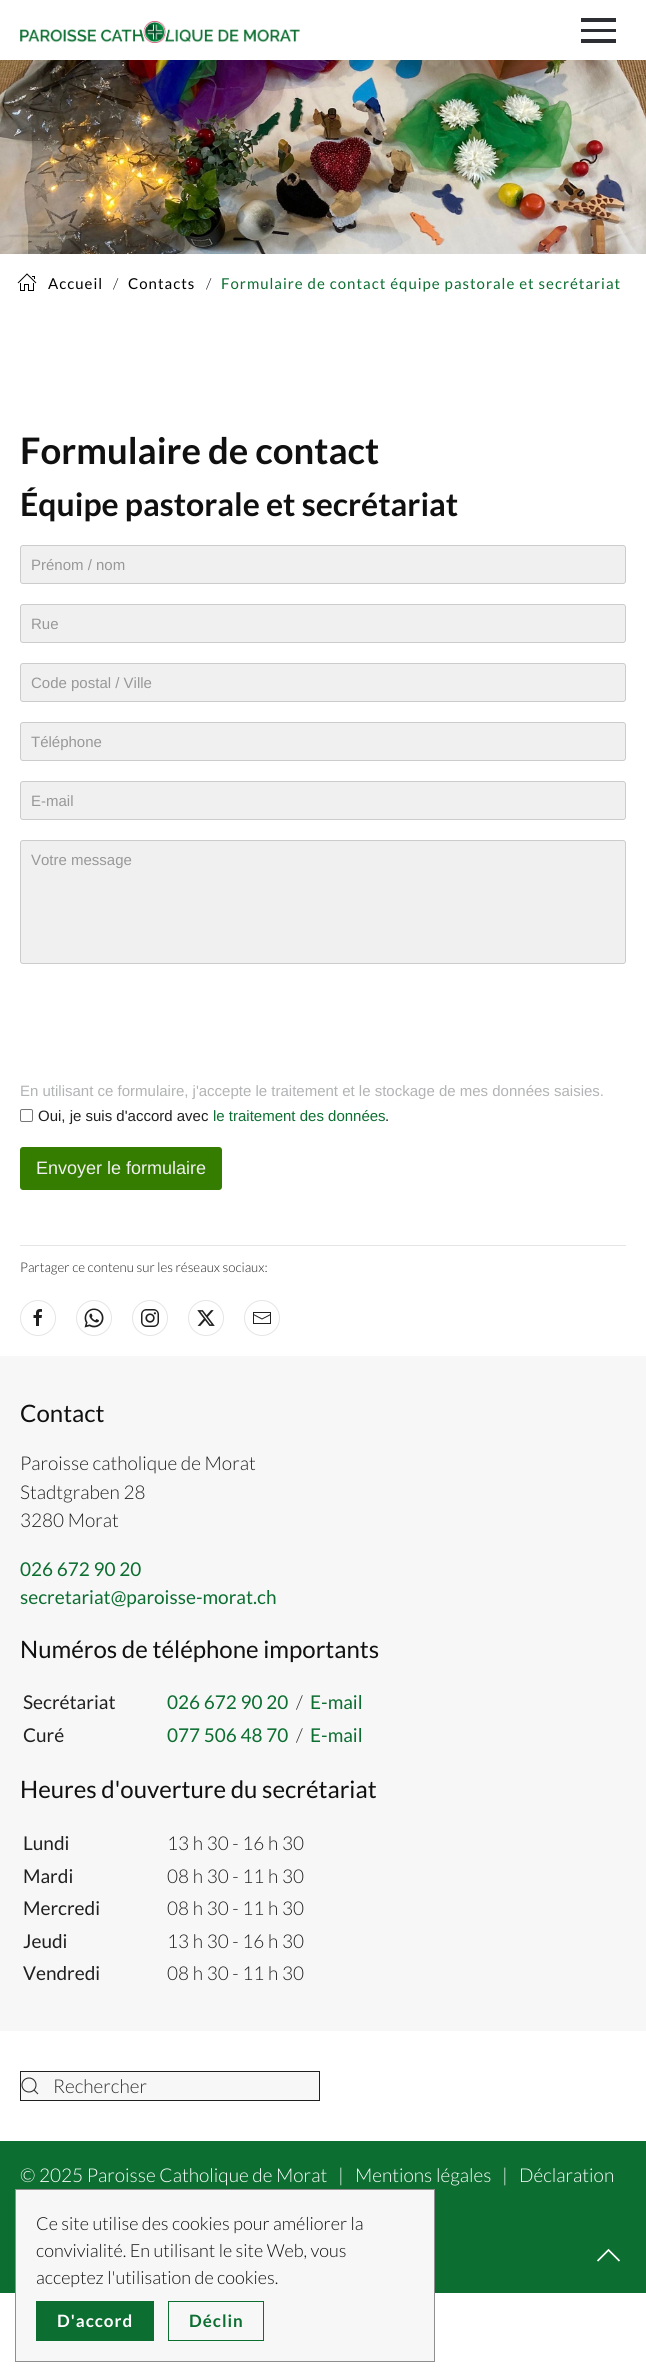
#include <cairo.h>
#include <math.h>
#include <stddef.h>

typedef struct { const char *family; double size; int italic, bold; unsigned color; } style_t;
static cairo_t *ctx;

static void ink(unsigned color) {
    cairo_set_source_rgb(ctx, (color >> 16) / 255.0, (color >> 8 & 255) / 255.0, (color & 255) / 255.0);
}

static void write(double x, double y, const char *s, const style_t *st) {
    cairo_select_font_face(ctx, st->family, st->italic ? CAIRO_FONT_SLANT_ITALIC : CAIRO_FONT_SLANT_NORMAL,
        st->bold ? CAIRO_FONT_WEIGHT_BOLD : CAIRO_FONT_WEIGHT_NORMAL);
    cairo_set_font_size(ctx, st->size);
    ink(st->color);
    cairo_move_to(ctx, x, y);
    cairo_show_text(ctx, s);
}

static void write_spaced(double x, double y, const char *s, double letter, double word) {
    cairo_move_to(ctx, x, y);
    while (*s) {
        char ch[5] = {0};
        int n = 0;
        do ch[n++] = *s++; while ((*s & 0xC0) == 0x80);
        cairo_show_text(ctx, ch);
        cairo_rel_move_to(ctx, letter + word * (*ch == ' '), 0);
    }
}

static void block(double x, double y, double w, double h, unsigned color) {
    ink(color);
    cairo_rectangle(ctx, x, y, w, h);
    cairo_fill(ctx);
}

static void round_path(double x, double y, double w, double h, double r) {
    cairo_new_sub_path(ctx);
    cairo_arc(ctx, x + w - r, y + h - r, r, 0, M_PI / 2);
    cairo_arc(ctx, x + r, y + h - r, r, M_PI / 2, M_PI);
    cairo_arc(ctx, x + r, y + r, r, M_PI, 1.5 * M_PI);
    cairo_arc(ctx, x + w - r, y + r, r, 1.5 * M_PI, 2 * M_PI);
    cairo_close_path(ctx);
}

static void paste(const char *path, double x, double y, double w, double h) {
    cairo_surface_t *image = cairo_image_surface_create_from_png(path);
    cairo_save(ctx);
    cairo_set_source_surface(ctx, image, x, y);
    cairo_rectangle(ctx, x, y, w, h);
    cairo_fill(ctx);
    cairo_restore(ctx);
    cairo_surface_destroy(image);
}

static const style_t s1 = {"Lato Light", 15, 0, 0, 0x000000};
static const style_t s2 = {"Lato", 36.5, 0, 1, 0x101010};
static const style_t s3 = {"Lato", 32, 0, 1, 0x101010};
static const style_t s4 = {"Liberation Sans", 15, 0, 0, 0x989898};
static const style_t s5 = {"Liberation Sans", 15, 0, 0, 0xb1b3b4};
static const style_t s6 = {"Liberation Sans", 15, 0, 0, 0x202020};
static const style_t s7 = {"Liberation Sans", 15, 0, 0, 0x0c6e31};
static const style_t s8 = {"Liberation Sans", 18, 0, 0, 0xf0f0f0};
static const style_t s9 = {"Lato Light", 13.3, 0, 0, 0x202020};
static const style_t s10 = {"Lato", 24, 0, 0, 0x101010};
static const style_t s11 = {"Lato Light", 19, 0, 0, 0x202020};
static const style_t s12 = {"Lato", 19, 0, 0, 0x0c6e31};
static const style_t s13 = {"Lato", 19, 0, 0, 0x202020};
static const style_t s14 = {"Lato Light", 19, 0, 0, 0x303030};
static const style_t s15 = {"Lato Light", 19, 0, 0, 0xffffff};
static const style_t s16 = {"Lato Light", 18, 0, 0, 0x101010};

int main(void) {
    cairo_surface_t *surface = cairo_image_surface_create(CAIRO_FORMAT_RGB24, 646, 2377);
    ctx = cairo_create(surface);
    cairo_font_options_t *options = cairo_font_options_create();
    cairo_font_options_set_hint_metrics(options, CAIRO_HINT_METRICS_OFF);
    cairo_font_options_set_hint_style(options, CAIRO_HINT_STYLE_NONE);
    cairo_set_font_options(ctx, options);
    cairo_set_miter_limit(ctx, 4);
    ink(0xffffff);
    cairo_paint(ctx);
    paste("pic1.png", 20, 21, 280, 22);
    block(581, 18, 35, 4, 0x2d2e33);
    block(581, 29, 35, 3, 0x2d2e33);
    block(581, 39, 35, 4, 0x2d2e33);
    paste("pic2.png", 0, 60, 646, 194);
    paste("pic3.png", 17, 273, 20, 18);
    cairo_select_font_face(ctx, "Lato", CAIRO_FONT_SLANT_NORMAL, CAIRO_FONT_WEIGHT_NORMAL);
    cairo_set_font_size(ctx, 15);
    ink(0x000000);
    write_spaced(48, 289, "Accueil", 1, 0);
    write(113, 289, "/", &s1);
    cairo_select_font_face(ctx, "Lato", CAIRO_FONT_SLANT_NORMAL, CAIRO_FONT_WEIGHT_NORMAL);
    write_spaced(128, 289, "Contacts", 1, 0);
    write(206, 289, "/", &s1);
    cairo_select_font_face(ctx, "Lato", CAIRO_FONT_SLANT_NORMAL, CAIRO_FONT_WEIGHT_NORMAL);
    ink(0x0c6e31);
    write_spaced(221, 289, "Formulaire de contact équipe pastorale et secrétariat", 1, 0);
    write(20, 464, "Formulaire de contact", &s2);
    write(20, 516, "Équipe pastorale et secrétariat", &s3);
    ink(0xf0f0f0);
    round_path(20.5, 545.5, 605, 38, 2.5);
    cairo_fill_preserve(ctx);
    ink(0xcccccc);
    cairo_set_line_width(ctx, 1);
    cairo_stroke(ctx);
    write(31, 570, "Prénom / nom", &s4);
    ink(0xf0f0f0);
    round_path(20.5, 604.5, 605, 38, 2.5);
    cairo_fill_preserve(ctx);
    ink(0xcccccc);
    cairo_stroke(ctx);
    write(31, 629, "Rue", &s4);
    ink(0xf0f0f0);
    round_path(20.5, 663.5, 605, 38, 2.5);
    cairo_fill_preserve(ctx);
    ink(0xcccccc);
    cairo_stroke(ctx);
    write(31, 688, "Code postal / Ville", &s4);
    ink(0xf0f0f0);
    round_path(20.5, 722.5, 605, 38, 2.5);
    cairo_fill_preserve(ctx);
    ink(0xcccccc);
    cairo_stroke(ctx);
    write(31, 747, "Téléphone", &s4);
    ink(0xf0f0f0);
    round_path(20.5, 781.5, 605, 38, 2.5);
    cairo_fill_preserve(ctx);
    ink(0xcccccc);
    cairo_stroke(ctx);
    write(31, 806, "E-mail", &s4);
    ink(0xf0f0f0);
    round_path(20.5, 840.5, 605, 123, 2.5);
    cairo_fill_preserve(ctx);
    ink(0xcccccc);
    cairo_stroke(ctx);
    write(31, 865, "Votre message", &s4);
    write(20, 1096, "En utilisant ce formulaire, j'accepte le traitement et le stockage de mes données saisies.", &s5);
    round_path(20.5, 1109.5, 12, 12, 1.5);
    ink(0x767676);
    cairo_stroke(ctx);
    write(38, 1121, "Oui, je suis d'accord avec", &s6);
    write(213, 1121, "le traitement des données", &s7);
    write(385, 1121, ".", &s6);
    ink(0x347d00);
    round_path(20, 1147, 202, 43, 3);
    cairo_fill(ctx);
    write(36, 1174, "Envoyer le formulaire", &s8);
    block(20, 1245, 606, 1, 0xe5e5e7);
    write(20, 1272, "Partager ce contenu sur les réseaux sociaux:", &s9);
    cairo_new_path(ctx);
    cairo_arc(ctx, 38, 1318, 17.5, 0, 2 * M_PI);
    ink(0xe5e5e7);
    cairo_stroke(ctx);
    paste("pic4.png", 33, 1309, 9, 17);
    cairo_arc(ctx, 94, 1318, 17.5, 0, 2 * M_PI);
    cairo_stroke(ctx);
    paste("pic5.png", 84, 1308, 20, 20);
    cairo_arc(ctx, 150, 1318, 17.5, 0, 2 * M_PI);
    cairo_stroke(ctx);
    paste("pic6.png", 141, 1309, 18, 18);
    cairo_arc(ctx, 206, 1318, 17.5, 0, 2 * M_PI);
    cairo_stroke(ctx);
    paste("pic7.png", 197, 1310, 18, 16);
    cairo_arc(ctx, 262, 1318, 17.5, 0, 2 * M_PI);
    cairo_stroke(ctx);
    paste("pic8.png", 253, 1312, 18, 12);
    block(0, 1356, 646, 675, 0xf7f7f7);
    write(20, 1422, "Contact", &s10);
    write(20, 1470, "Paroisse catholique de Morat", &s11);
    write(20, 1499, "Stadtgraben 28", &s11);
    write(20, 1527, "3280 Morat", &s11);
    write(20, 1576, "026 672 90 20", &s12);
    write(20, 1604, "secretariat@paroisse-morat.ch", &s12);
    write(20, 1658, "Numéros de téléphone importants", &s10);
    write(23, 1709, "Secrétariat", &s13);
    write(167, 1709, "026 672 90 20", &s12);
    write(296, 1709, "/", &s11);
    write(310, 1709, "E-mail", &s12);
    write(23, 1742, "Curé", &s13);
    write(167, 1742, "077 506 48 70", &s12);
    write(296, 1742, "/", &s11);
    write(310, 1742, "E-mail", &s12);
    write(20, 1798, "Heures d'ouverture du secrétariat", &s10);
    write(23, 1850, "Lundi", &s13);
    write(167, 1850, "13 h 30 - 16 h 30", &s11);
    write(23, 1883, "Mardi", &s13);
    write(167, 1883, "08 h 30 - 11 h 30", &s11);
    write(23, 1915, "Mercredi", &s13);
    write(167, 1915, "08 h 30 - 11 h 30", &s11);
    write(23, 1948, "Jeudi", &s13);
    write(167, 1948, "13 h 30 - 16 h 30", &s11);
    write(23, 1980, "Vendredi", &s13);
    write(167, 1980, "08 h 30 - 11 h 30", &s11);
    ink(0xf7f7f7);
    cairo_rectangle(ctx, 20.5, 2071.5, 299, 29);
    cairo_fill_preserve(ctx);
    ink(0x202020);
    cairo_stroke(ctx);
    cairo_arc(ctx, 29, 2085, 7, 0, 2 * M_PI);
    ink(0x303030);
    cairo_set_line_width(ctx, 1.1);
    cairo_stroke(ctx);
    cairo_new_path(ctx);
    cairo_move_to(ctx, 34, 2090);
    cairo_line_to(ctx, 38, 2094);
    cairo_close_path(ctx);
    cairo_stroke(ctx);
    write(53, 2093, "Rechercher", &s14);
    block(0, 2141, 646, 152, 0x0c6e31);
    write(20, 2182, "© 2025 Paroisse Catholique de Morat", &s15);
    write(338, 2182, "|", &s15);
    write(355, 2182, "Mentions légales", &s15);
    write(502, 2182, "|", &s15);
    write(519, 2182, "Déclaration", &s15);
    cairo_new_path(ctx);
    cairo_move_to(ctx, 597.5, 2261);
    cairo_line_to(ctx, 608.5, 2250);
    cairo_line_to(ctx, 619.5, 2261);
    cairo_set_line_width(ctx, 1.7);
    cairo_stroke(ctx);
    ink(0xf7f7f7);
    cairo_rectangle(ctx, 15.5, 2189.5, 419, 172);
    cairo_fill_preserve(ctx);
    ink(0x8f8f8f);
    cairo_set_line_width(ctx, 1);
    cairo_stroke(ctx);
    write(36, 2230, "Ce site utilise des cookies pour améliorer la", &s16);
    write(36, 2257, "convivialité. En utilisant le site Web, vous", &s16);
    write(36, 2284, "acceptez l'utilisation de cookies.", &s16);
    block(36, 2301, 118, 40, 0x0c6e31);
    cairo_select_font_face(ctx, "Lato", CAIRO_FONT_SLANT_NORMAL, CAIRO_FONT_WEIGHT_BOLD);
    cairo_set_font_size(ctx, 17);
    ink(0xffffff);
    write_spaced(57, 2327, "D'accord", 1, 0);
    cairo_rectangle(ctx, 168.5, 2301.5, 95, 39);
    ink(0x0c6e31);
    cairo_stroke(ctx);
    write_spaced(189, 2327, "Déclin", 1, 0);
    cairo_surface_write_to_png(surface, "screenshot.png");
    cairo_font_options_destroy(options);
    cairo_destroy(ctx);
    cairo_surface_destroy(surface);
    return 0;
}
